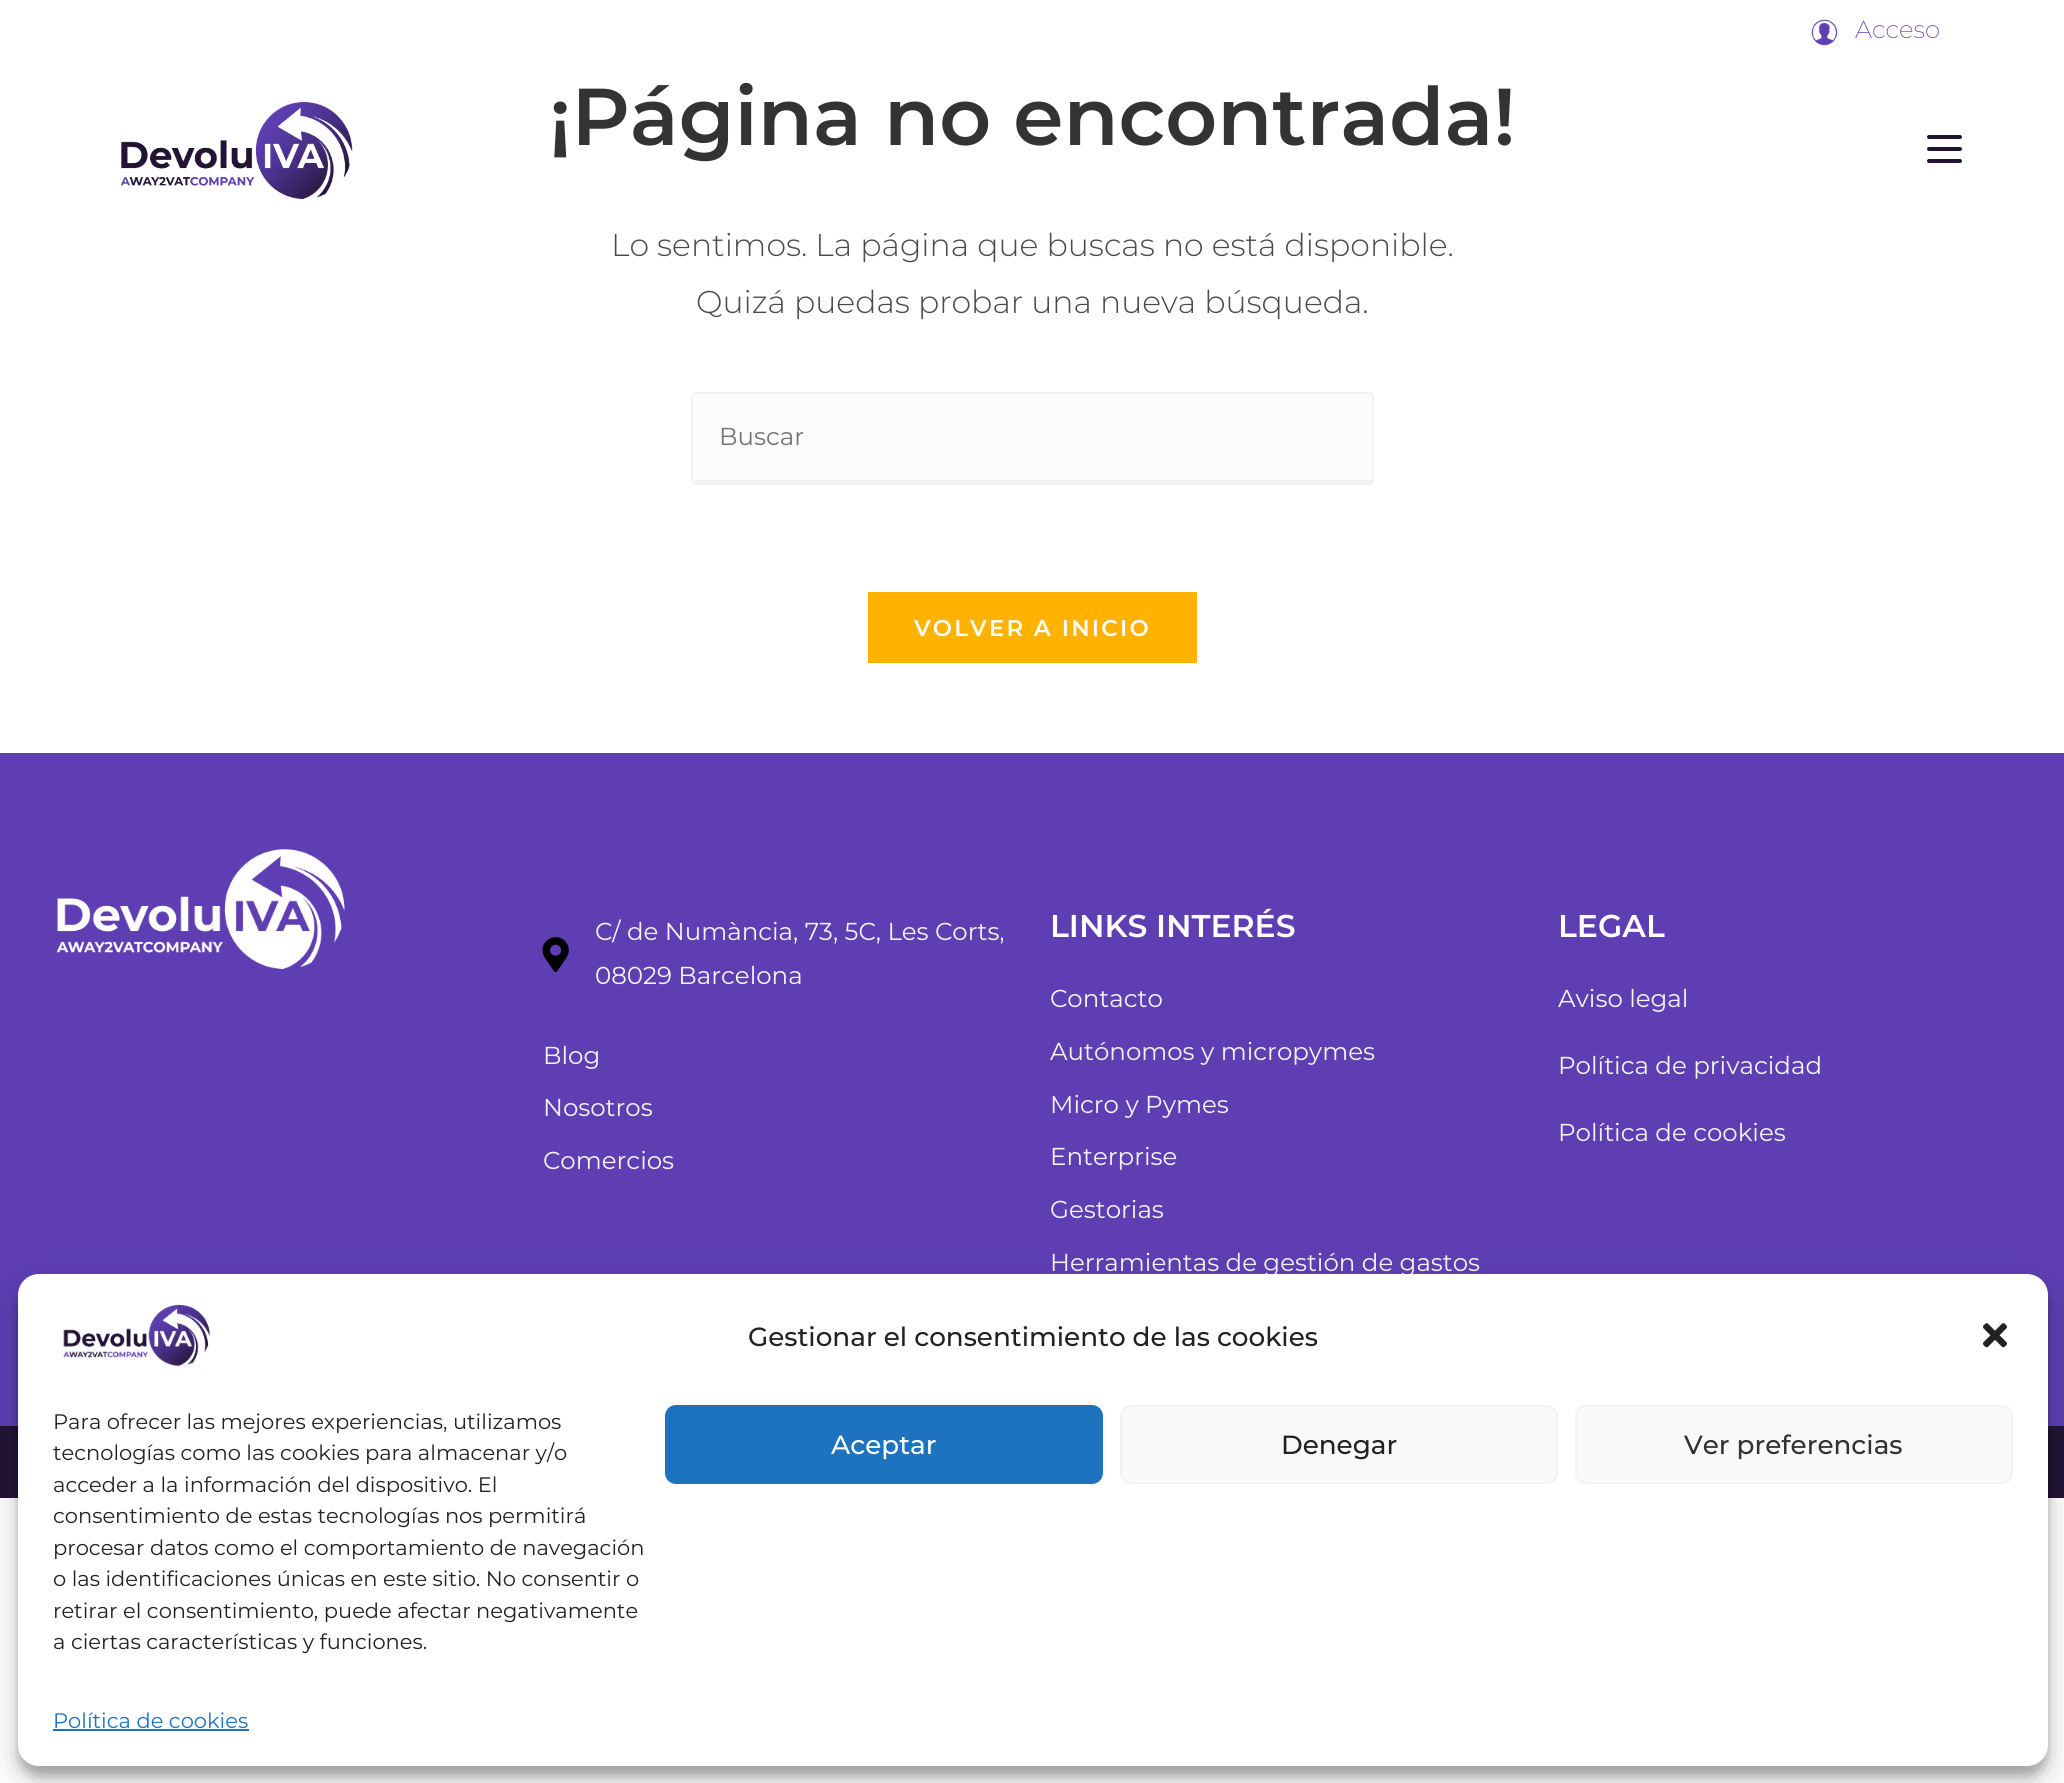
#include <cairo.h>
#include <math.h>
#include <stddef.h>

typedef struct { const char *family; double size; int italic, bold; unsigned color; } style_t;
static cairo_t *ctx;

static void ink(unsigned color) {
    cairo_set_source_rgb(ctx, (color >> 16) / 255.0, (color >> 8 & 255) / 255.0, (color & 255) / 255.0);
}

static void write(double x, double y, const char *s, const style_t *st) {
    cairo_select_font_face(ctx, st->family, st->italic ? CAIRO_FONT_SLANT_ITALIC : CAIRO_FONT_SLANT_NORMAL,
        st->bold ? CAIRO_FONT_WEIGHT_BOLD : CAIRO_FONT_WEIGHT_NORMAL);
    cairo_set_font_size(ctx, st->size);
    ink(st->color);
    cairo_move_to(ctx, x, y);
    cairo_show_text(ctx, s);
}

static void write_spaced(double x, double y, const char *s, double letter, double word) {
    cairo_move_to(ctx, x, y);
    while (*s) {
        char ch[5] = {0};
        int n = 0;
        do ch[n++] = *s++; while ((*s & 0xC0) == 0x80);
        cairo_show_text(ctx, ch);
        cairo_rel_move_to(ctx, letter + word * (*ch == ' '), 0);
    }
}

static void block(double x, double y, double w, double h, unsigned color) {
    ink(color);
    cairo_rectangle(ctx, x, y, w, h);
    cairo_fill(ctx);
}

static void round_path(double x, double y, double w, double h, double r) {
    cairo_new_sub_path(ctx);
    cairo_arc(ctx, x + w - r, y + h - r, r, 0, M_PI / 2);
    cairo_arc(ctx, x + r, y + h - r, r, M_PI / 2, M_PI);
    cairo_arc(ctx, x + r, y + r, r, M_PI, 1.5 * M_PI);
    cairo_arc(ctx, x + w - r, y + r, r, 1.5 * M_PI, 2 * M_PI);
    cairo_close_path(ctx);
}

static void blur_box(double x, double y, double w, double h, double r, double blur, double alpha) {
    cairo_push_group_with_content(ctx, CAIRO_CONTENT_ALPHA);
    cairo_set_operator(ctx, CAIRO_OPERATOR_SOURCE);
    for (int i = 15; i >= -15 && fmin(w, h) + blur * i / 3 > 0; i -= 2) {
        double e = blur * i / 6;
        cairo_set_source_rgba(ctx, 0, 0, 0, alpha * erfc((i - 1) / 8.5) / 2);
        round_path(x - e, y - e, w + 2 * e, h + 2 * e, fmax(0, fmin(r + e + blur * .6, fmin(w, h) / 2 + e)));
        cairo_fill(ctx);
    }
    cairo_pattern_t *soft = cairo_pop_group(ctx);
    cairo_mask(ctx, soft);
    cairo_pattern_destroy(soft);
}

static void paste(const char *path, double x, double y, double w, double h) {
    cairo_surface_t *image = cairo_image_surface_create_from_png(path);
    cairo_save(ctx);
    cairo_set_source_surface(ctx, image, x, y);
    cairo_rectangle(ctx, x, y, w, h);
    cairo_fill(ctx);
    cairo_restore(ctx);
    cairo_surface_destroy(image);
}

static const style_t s1 = {"Montserrat ExtraLight", 24.5, 0, 0, 0x5e3eb2};
static const style_t s2 = {"Montserrat SemiBold", 80.5, 0, 0, 0x333333};
static const style_t s3 = {"Montserrat Light", 31.5, 0, 0, 0x4a4a4a};
static const style_t s4 = {"Montserrat", 24.5, 0, 0, 0x757575};
static const style_t s5 = {"Montserrat", 24.5, 0, 0, 0xf4f4f4};
static const style_t s6 = {"Montserrat SemiBold", 31.5, 0, 0, 0xffffff};
static const style_t s7 = {"Montserrat Medium", 26.25, 0, 0, 0x222222};
static const style_t s8 = {"Montserrat", 21, 0, 0, 0x222222};
static const style_t s9 = {"Montserrat Medium", 26.25, 0, 0, 0xffffff};
static const style_t s10 = {"Montserrat Medium", 26.25, 0, 0, 0x333333};
static const style_t s11 = {"Montserrat", 21, 0, 0, 0x1e73be};

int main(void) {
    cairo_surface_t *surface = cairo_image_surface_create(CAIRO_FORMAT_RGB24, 2064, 1783);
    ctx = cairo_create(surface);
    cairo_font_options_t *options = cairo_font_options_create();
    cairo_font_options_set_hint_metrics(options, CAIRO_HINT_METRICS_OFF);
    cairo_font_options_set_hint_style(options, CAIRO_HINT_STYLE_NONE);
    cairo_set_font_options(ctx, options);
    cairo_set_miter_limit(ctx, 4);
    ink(0xffffff);
    cairo_paint(ctx);
    paste("pic1.png", 1811, 19, 27, 27);
    write(1855, 38, "Acceso", &s1);
    write(549, 145, "¡Página no encontrada!", &s2);
    write(611, 256, "Lo sentimos. La página que buscas no está disponible.", &s3);
    write(696, 313, "Quizá puedas probar una nueva búsqueda.", &s3);
    ink(0xfcfcfc);
    cairo_new_path(ctx);
    cairo_move_to(ctx, 696, 394);
    cairo_line_to(ctx, 1368, 394);
    cairo_curve_to(ctx, 1370, 394, 1372, 395, 1372, 397);
    cairo_line_to(ctx, 1372, 480);
    cairo_line_to(ctx, 693, 480);
    cairo_line_to(ctx, 693, 397);
    cairo_curve_to(ctx, 693, 395, 695, 394, 696, 394);
    cairo_close_path(ctx);
    cairo_fill(ctx);
    round_path(692, 393, 681, 91, 4);
    ink(0xf2f2f2);
    cairo_stroke(ctx);
    block(695, 480, 677, 3, 0xf2f2f2);
    write(719, 445, "Buscar", &s4);
    block(868, 592, 329, 71, 0xffb200);
    cairo_select_font_face(ctx, "Montserrat SemiBold", CAIRO_FONT_SLANT_NORMAL, CAIRO_FONT_WEIGHT_NORMAL);
    cairo_set_font_size(ctx, 22.75);
    ink(0xffffff);
    write_spaced(914, 636, "VOLVER A INICIO", 2.25, 0);
    paste("pic2.png", 121, 102, 232, 97);
    ink(0x231434);
    round_path(1927, 135, 35, 4, 2);
    cairo_fill(ctx);
    round_path(1927, 147, 35, 4, 2);
    cairo_fill(ctx);
    round_path(1927, 159, 35, 4, 2);
    cairo_fill(ctx);
    block(0, 753, 2064, 673, 0x5e3eb2);
    paste("pic3.png", 56, 849, 289, 120);
    paste("pic4.png", 542, 937, 27, 36);
    write(595, 940, "C/ de Numància, 73, 5C, Les Corts,", &s5);
    write(595, 984, "08029 Barcelona", &s5);
    write(543, 1064, "Blog", &s5);
    write(543, 1116, "Nosotros", &s5);
    write(543, 1169, "Comercios", &s5);
    write(1050, 937, "LINKS INTERÉS", &s6);
    write(1050, 1007, "Contacto", &s5);
    write(1050, 1060, "Autónomos y micropymes", &s5);
    write(1050, 1113, "Micro y Pymes", &s5);
    write(1050, 1165, "Enterprise", &s5);
    write(1050, 1218, "Gestorias", &s5);
    write(1050, 1271, "Herramientas de gestión de gastos", &s5);
    write(1558, 937, "LEGAL", &s6);
    write(1558, 1007, "Aviso legal", &s5);
    write(1558, 1074, "Política de privacidad", &s5);
    write(1558, 1141, "Política de cookies", &s5);
    block(0, 1426, 2064, 72, 0x231434);
    ink(0x000000);
    blur_box(18, 1285, 2030, 491, 21, 5, 0.23);
    blur_box(18, 1292, 2030, 491, 21, 17.5, 0.19);
    ink(0xffffff);
    round_path(18, 1274, 2030, 492, 21);
    cairo_fill(ctx);
    paste("pic5.png", 63, 1304, 148, 63);
    write(748, 1346, "Gestionar el consentimiento de las cookies", &s7);
    paste("pic6.png", 1983, 1323, 24, 25);
    write(53, 1429, "Para ofrecer las mejores experiencias, utilizamos", &s8);
    write(53, 1460, "tecnologías como las cookies para almacenar y/o", &s8);
    write(53, 1492, "acceder a la información del dispositivo. El", &s8);
    write(53, 1523, "consentimiento de estas tecnologías nos permitirá", &s8);
    write(53, 1555, "procesar datos como el comportamiento de navegación", &s8);
    write(53, 1586, "o las identificaciones únicas en este sitio. No consentir o", &s8);
    write(53, 1618, "retirar el consentimiento, puede afectar negativamente", &s8);
    write(53, 1649, "a ciertas características y funciones.", &s8);
    ink(0x1e73be);
    round_path(666, 1406, 436, 77, 10);
    cairo_fill_preserve(ctx);
    cairo_stroke(ctx);
    write(831, 1454, "Aceptar", &s9);
    ink(0xf9f9f9);
    round_path(1121, 1406, 436, 77, 10);
    cairo_fill_preserve(ctx);
    ink(0xf2f2f2);
    cairo_stroke(ctx);
    write(1281, 1454, "Denegar", &s7);
    ink(0xf9f9f9);
    round_path(1576, 1406, 436, 77, 10);
    cairo_fill_preserve(ctx);
    ink(0xf2f2f2);
    cairo_stroke(ctx);
    write(1684, 1454, "Ver preferencias", &s10);
    write(53, 1728, "Política de cookies", &s11);
    block(53, 1729, 196, 2, 0x1e73be);
    cairo_surface_write_to_png(surface, "screenshot.png");
    cairo_font_options_destroy(options);
    cairo_destroy(ctx);
    cairo_surface_destroy(surface);
    return 0;
}
